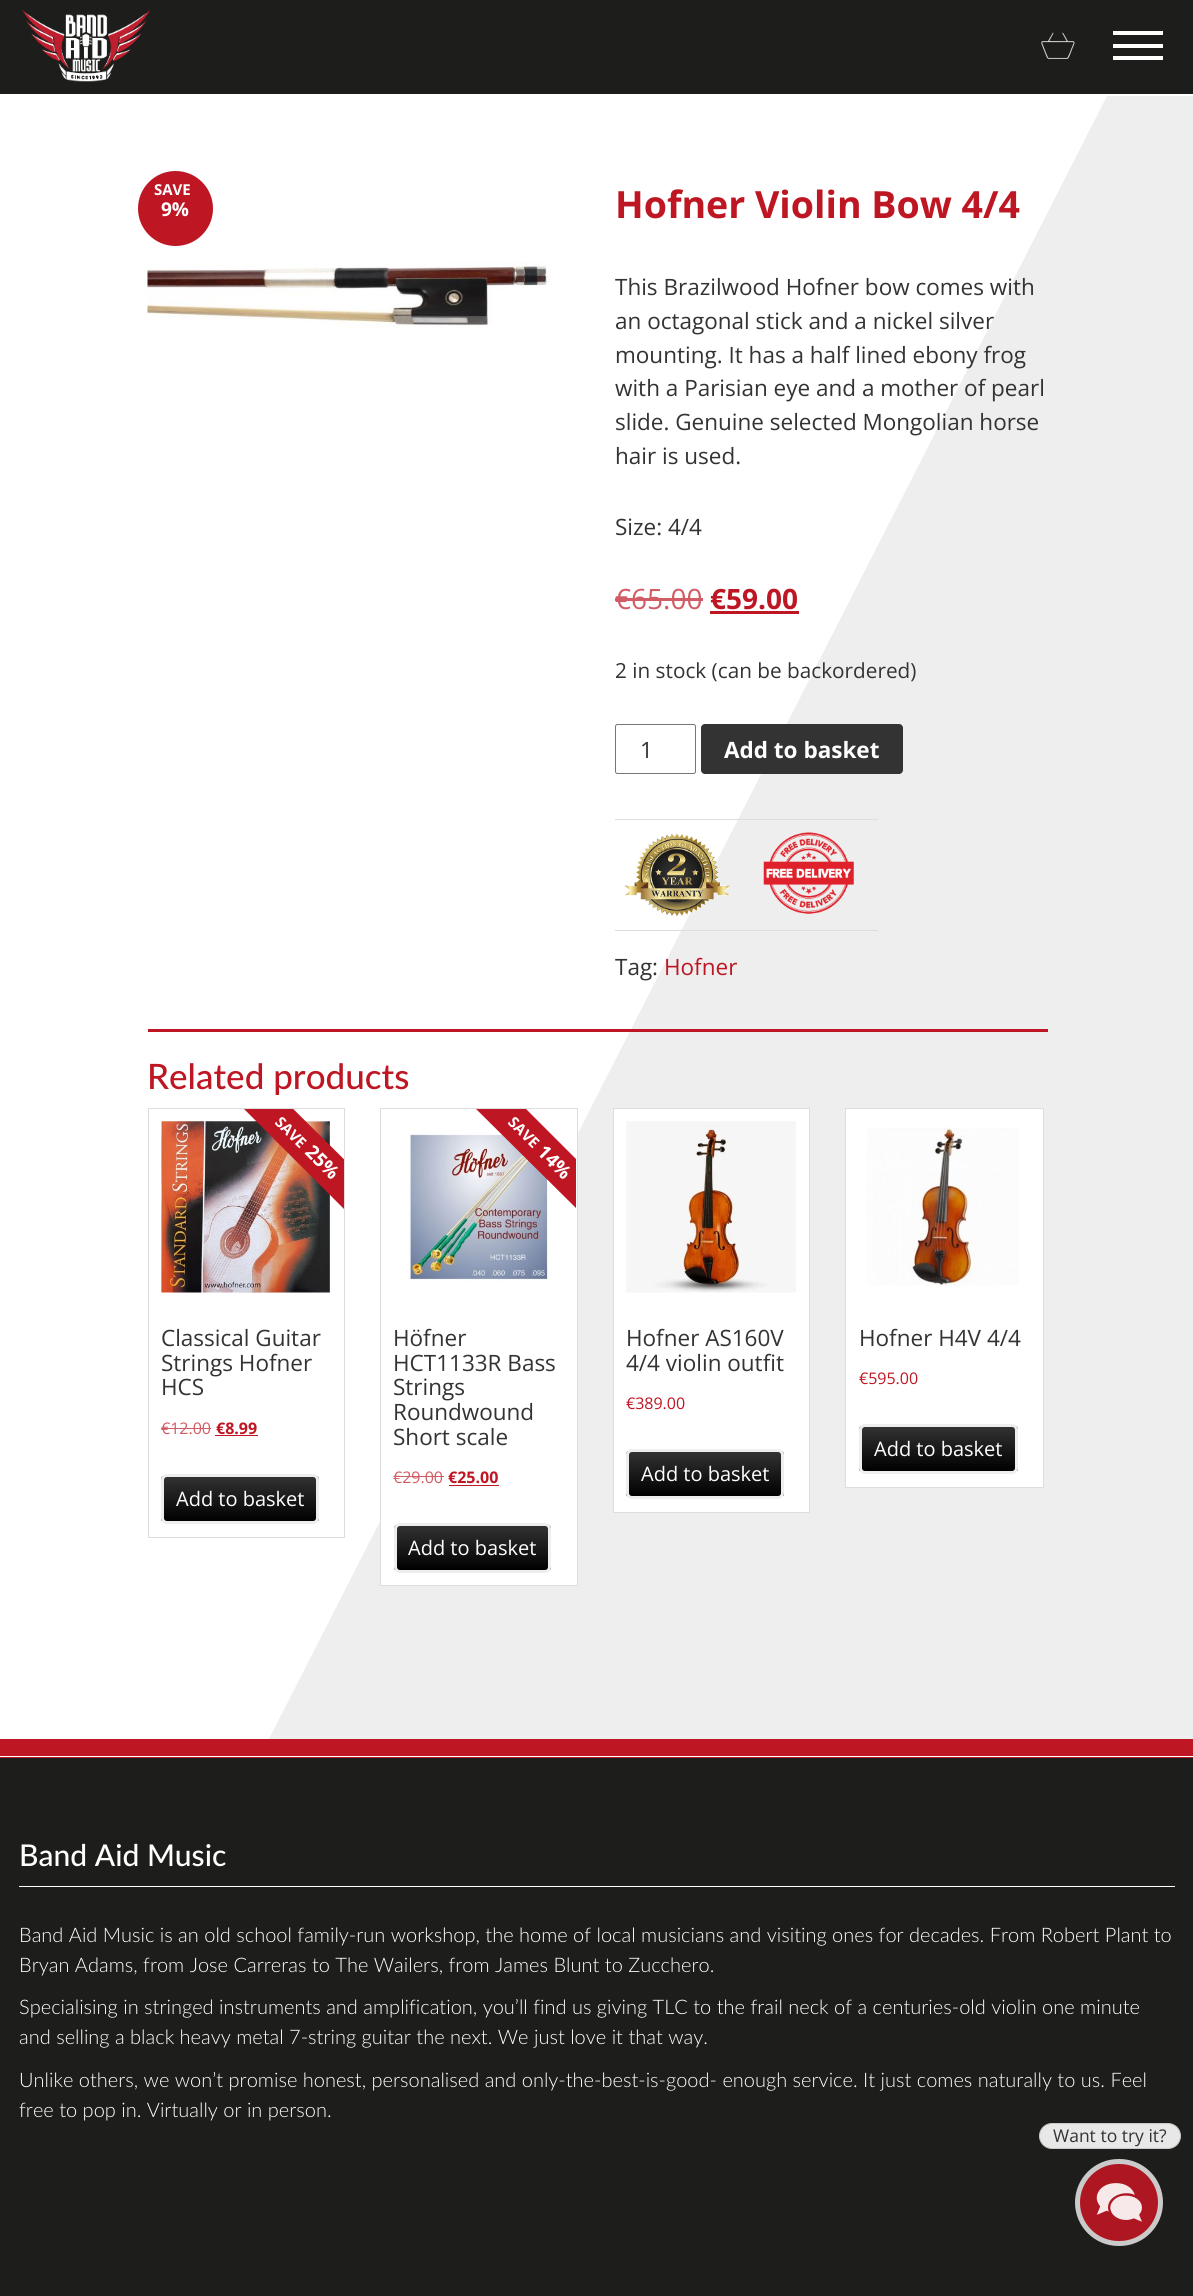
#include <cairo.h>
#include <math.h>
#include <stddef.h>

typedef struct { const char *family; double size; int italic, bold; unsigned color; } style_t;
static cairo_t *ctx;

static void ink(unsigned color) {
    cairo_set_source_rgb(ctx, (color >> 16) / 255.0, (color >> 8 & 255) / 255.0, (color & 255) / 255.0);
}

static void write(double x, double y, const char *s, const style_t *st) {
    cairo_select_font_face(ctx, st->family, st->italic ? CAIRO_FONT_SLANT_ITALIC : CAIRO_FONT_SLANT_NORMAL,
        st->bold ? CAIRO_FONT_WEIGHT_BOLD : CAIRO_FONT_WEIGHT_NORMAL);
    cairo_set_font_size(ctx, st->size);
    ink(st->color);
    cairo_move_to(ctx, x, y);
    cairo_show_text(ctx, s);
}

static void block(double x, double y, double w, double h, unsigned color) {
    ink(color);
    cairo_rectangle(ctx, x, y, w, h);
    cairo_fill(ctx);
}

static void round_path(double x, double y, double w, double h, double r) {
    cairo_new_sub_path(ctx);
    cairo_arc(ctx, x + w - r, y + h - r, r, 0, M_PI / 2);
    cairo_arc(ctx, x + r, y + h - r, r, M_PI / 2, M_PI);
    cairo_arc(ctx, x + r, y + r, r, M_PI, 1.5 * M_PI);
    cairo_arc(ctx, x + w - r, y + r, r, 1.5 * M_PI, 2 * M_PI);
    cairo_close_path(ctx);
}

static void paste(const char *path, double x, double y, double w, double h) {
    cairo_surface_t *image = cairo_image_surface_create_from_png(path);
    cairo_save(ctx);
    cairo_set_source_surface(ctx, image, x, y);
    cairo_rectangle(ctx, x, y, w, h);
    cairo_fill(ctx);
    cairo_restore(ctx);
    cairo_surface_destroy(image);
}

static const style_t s1 = {"Open Sans", 15, 0, 1, 0xffffff};
static const style_t s2 = {"Open Sans", 19, 0, 1, 0xffffff};
static const style_t s3 = {"Open Sans", 37.5, 0, 1, 0xbe1623};
static const style_t s4 = {"Open Sans", 22.5, 0, 0, 0x333333};
static const style_t s5 = {"Open Sans", 28, 0, 0, 0xd25c65};
static const style_t s6 = {"Open Sans", 28, 0, 1, 0xbe1623};
static const style_t s7 = {"Open Sans", 20.75, 0, 0, 0x333333};
static const style_t s8 = {"Open Sans", 22.5, 0, 1, 0xffffff};
static const style_t s9 = {"Open Sans", 22.5, 0, 0, 0xbe1623};
static const style_t s10 = {"Lato Medium", 35, 0, 0, 0xbe1623};
static const style_t s11 = {"Open Sans", 16, 0, 0, 0xd25c65};
static const style_t s12 = {"Open Sans", 16, 0, 1, 0xbe1623};
static const style_t s13 = {"Open Sans", 20, 0, 0, 0xffffff};
static const style_t s14 = {"Open Sans", 16, 0, 0, 0xbe1623};
static const style_t s15 = {"Lato Medium", 30, 0, 0, 0xffffff};
static const style_t s16 = {"Lato Light", 20, 0, 0, 0xffffff};
static const style_t s17 = {"Open Sans", 17.5, 0, 0, 0x333333};

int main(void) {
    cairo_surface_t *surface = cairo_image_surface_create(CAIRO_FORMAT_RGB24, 1193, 2296);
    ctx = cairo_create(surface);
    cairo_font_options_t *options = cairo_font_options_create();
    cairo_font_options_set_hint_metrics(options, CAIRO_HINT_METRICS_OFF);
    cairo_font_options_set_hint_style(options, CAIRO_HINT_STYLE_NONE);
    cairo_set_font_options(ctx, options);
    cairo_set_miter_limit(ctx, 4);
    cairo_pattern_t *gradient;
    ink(0xffffff);
    cairo_paint(ctx);
    block(0, 0, 1193, 94, 0x1d1d1b);
    paste("pic1.png", 22, 10, 128, 72);
    paste("pic2.png", 1041, 32, 34, 27);
    block(1113, 31, 50, 4, 0xffffff);
    block(1113, 44, 50, 4, 0xffffff);
    block(1113, 56, 50, 4, 0xffffff);
    cairo_save(ctx);
    cairo_rectangle(ctx, 0, 94, 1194, 1645);
    cairo_clip(ctx);
    ink(0xeeeeee);
    cairo_set_fill_rule(ctx, CAIRO_FILL_RULE_EVEN_ODD);
    cairo_new_path(ctx);
    cairo_move_to(ctx, 1107, 96);
    cairo_line_to(ctx, 18, 2231);
    cairo_line_to(ctx, 20, 2232);
    cairo_line_to(ctx, 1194, 2232);
    cairo_line_to(ctx, 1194, 96);
    cairo_close_path(ctx);
    cairo_fill(ctx);
    cairo_restore(ctx);
    ink(0xbe1623);
    cairo_arc(ctx, 175.5, 208.5, 37.5, 0, 2 * M_PI);
    cairo_fill(ctx);
    write(154, 195, "SAVE", &s1);
    write(161, 216, "9%", &s2);
    write(615, 218, "Hofner Violin Bow 4/4", &s3);
    write(615, 295, "This Brazilwood Hofner bow comes with", &s4);
    write(615, 329, "an octagonal stick and a nickel silver", &s4);
    write(615, 363, "mounting. It has a half lined ebony frog", &s4);
    write(615, 396, "with a Parisian eye and a mother of pearl", &s4);
    write(615, 430, "slide. Genuine selected Mongolian horse", &s4);
    write(615, 464, "hair is used.", &s4);
    write(615, 535, "Size: 4/4", &s4);
    write(615, 609, "€65.00", &s5);
    block(615, 598, 88, 3, 0xd25c65);
    write(710, 609, "€59.00", &s6);
    block(710, 611, 89, 3, 0xbe1623);
    write(615, 678, "2 in stock (can be backordered)", &s7);
    round_path(615.5, 724.5, 80, 49, 2);
    ink(0x767676);
    cairo_set_line_width(ctx, 1);
    cairo_stroke(ctx);
    write(640, 758, "1", &s4);
    round_path(701, 724, 202, 50, 4);
    cairo_fill(ctx);
    write(724, 758, "Add to basket", &s8);
    block(615, 819, 263, 1, 0xdddddd);
    block(615, 930, 263, 1, 0xdddddd);
    paste("pic3.png", 624, 833, 106, 83);
    paste("pic4.png", 763, 832, 91, 82);
    write(615, 975, "Tag:", &s4);
    write(664, 975, "Hofner", &s9);
    paste("pic5.png", 147, 262, 403, 67);
    block(148, 1029, 900, 3, 0xbe1623);
    write(147, 1089, "Related products", &s10);
    cairo_rectangle(ctx, 148.5, 1108.5, 196, 429);
    ink(0xdddddd);
    cairo_stroke(ctx);
    paste("pic6.png", 161, 1121, 169, 172);
    cairo_save(ctx);
    cairo_rectangle(ctx, 149, 1109, 195, 427);
    cairo_clip(ctx);
    ink(0xbe1623);
    cairo_new_path(ctx);
    cairo_move_to(ctx, 264, 1080);
    cairo_line_to(ctx, 375, 1190);
    cairo_line_to(ctx, 350, 1215);
    cairo_line_to(ctx, 240, 1105);
    cairo_close_path(ctx);
    cairo_fill(ctx);
    cairo_restore(ctx);
    cairo_save(ctx);
    cairo_translate(ctx, 274, 1123);
    cairo_rotate(ctx, 45 * M_PI / 180);
    write(0, 0, "SAVE", &s1);
    cairo_restore(ctx);
    cairo_save(ctx);
    cairo_translate(ctx, 304, 1153);
    cairo_rotate(ctx, 45 * M_PI / 180);
    write(0, 0, "25%", &s2);
    cairo_restore(ctx);
    write(161, 1346, "Classical Guitar", &s4);
    write(161, 1371, "Strings Hofner", &s4);
    write(161, 1395, "HCS", &s4);
    write(161, 1434, "€12.00", &s11);
    block(161, 1428, 50, 1, 0xd25c65);
    write(216, 1434, "€8.99", &s12);
    block(215, 1435, 43, 1, 0xbe1623);
    cairo_save(ctx);
    round_path(161, 1474, 158, 50, 6);
    cairo_clip(ctx);
    gradient = cairo_pattern_create_linear(240, 1476, 240, 1521);
    cairo_pattern_add_color_stop_rgba(gradient, 0, 0.2, 0.2, 0.2, 1);
    cairo_pattern_add_color_stop_rgba(gradient, 1, 0, 0, 0, 1);
    cairo_set_source(ctx, gradient);
    cairo_pattern_destroy(gradient);
    cairo_rectangle(ctx, 161, 1476, 158, 45);
    cairo_fill(ctx);
    cairo_restore(ctx);
    round_path(162.5, 1475.5, 155, 47, 4.5);
    ink(0xeeeeee);
    cairo_set_line_width(ctx, 3);
    cairo_stroke(ctx);
    write(176, 1506, "Add to basket", &s13);
    block(381, 1135, 196, 450, 0xffffff);
    cairo_rectangle(ctx, 380.5, 1108.5, 197, 477);
    ink(0xdddddd);
    cairo_set_line_width(ctx, 1);
    cairo_stroke(ctx);
    paste("pic7.png", 406, 1132, 142, 150);
    cairo_save(ctx);
    cairo_rectangle(ctx, 381, 1109, 195, 476);
    cairo_clip(ctx);
    ink(0xbe1623);
    cairo_new_path(ctx);
    cairo_move_to(ctx, 497, 1080);
    cairo_line_to(ctx, 607, 1190);
    cairo_line_to(ctx, 583, 1215);
    cairo_line_to(ctx, 472, 1105);
    cairo_close_path(ctx);
    cairo_fill(ctx);
    cairo_restore(ctx);
    cairo_save(ctx);
    cairo_translate(ctx, 507, 1123);
    cairo_rotate(ctx, 45 * M_PI / 180);
    write(0, 0, "SAVE", &s1);
    cairo_restore(ctx);
    cairo_save(ctx);
    cairo_translate(ctx, 536, 1153);
    cairo_rotate(ctx, 45 * M_PI / 180);
    write(0, 0, "14%", &s2);
    cairo_restore(ctx);
    write(393, 1346, "Höfner", &s4);
    write(393, 1371, "HCT1133R Bass", &s4);
    write(393, 1395, "Strings", &s4);
    write(393, 1420, "Roundwound", &s4);
    write(393, 1445, "Short scale", &s4);
    write(393, 1483, "€29.00", &s11);
    block(394, 1476, 50, 1, 0xd25c65);
    write(448, 1483, "€25.00", &s12);
    block(449, 1485, 50, 1, 0xbe1623);
    cairo_save(ctx);
    round_path(394, 1523, 157, 50, 6);
    cairo_clip(ctx);
    gradient = cairo_pattern_create_linear(473, 1525, 473, 1570);
    cairo_pattern_add_color_stop_rgba(gradient, 0, 0.2, 0.2, 0.2, 1);
    cairo_pattern_add_color_stop_rgba(gradient, 1, 0, 0, 0, 1);
    cairo_set_source(ctx, gradient);
    cairo_pattern_destroy(gradient);
    cairo_rectangle(ctx, 394, 1525, 157, 45);
    cairo_fill(ctx);
    cairo_restore(ctx);
    round_path(395.5, 1524.5, 154, 47, 4.5);
    ink(0xeeeeee);
    cairo_set_line_width(ctx, 3);
    cairo_stroke(ctx);
    write(408, 1555, "Add to basket", &s13);
    cairo_rectangle(ctx, 613.5, 1108.5, 196, 404);
    cairo_fill_preserve(ctx);
    ink(0xdddddd);
    cairo_set_line_width(ctx, 1);
    cairo_stroke(ctx);
    paste("pic8.png", 626, 1121, 170, 172);
    write(626, 1346, "Hofner AS160V", &s4);
    write(626, 1371, "4/4 violin outfit", &s4);
    write(626, 1409, "€389.00", &s14);
    cairo_save(ctx);
    round_path(626, 1449, 158, 50, 6);
    cairo_clip(ctx);
    gradient = cairo_pattern_create_linear(705, 1451, 705, 1496);
    cairo_pattern_add_color_stop_rgba(gradient, 0, 0.2, 0.2, 0.2, 1);
    cairo_pattern_add_color_stop_rgba(gradient, 1, 0, 0, 0, 1);
    cairo_set_source(ctx, gradient);
    cairo_pattern_destroy(gradient);
    cairo_rectangle(ctx, 626, 1451, 158, 45);
    cairo_fill(ctx);
    cairo_restore(ctx);
    round_path(627.5, 1450.5, 155, 47, 4.5);
    ink(0xeeeeee);
    cairo_set_line_width(ctx, 3);
    cairo_stroke(ctx);
    write(641, 1481, "Add to basket", &s13);
    cairo_rectangle(ctx, 845.5, 1108.5, 198, 379);
    cairo_fill_preserve(ctx);
    ink(0xdddddd);
    cairo_set_line_width(ctx, 1);
    cairo_stroke(ctx);
    paste("pic9.png", 867, 1126, 152, 160);
    write(859, 1346, "Hofner H4V 4/4", &s4);
    write(859, 1384, "€595.00", &s14);
    cairo_save(ctx);
    round_path(859, 1424, 159, 50, 6);
    cairo_clip(ctx);
    gradient = cairo_pattern_create_linear(938, 1426, 938, 1471);
    cairo_pattern_add_color_stop_rgba(gradient, 0, 0.2, 0.2, 0.2, 1);
    cairo_pattern_add_color_stop_rgba(gradient, 1, 0, 0, 0, 1);
    cairo_set_source(ctx, gradient);
    cairo_pattern_destroy(gradient);
    cairo_rectangle(ctx, 859, 1426, 159, 45);
    cairo_fill(ctx);
    cairo_restore(ctx);
    round_path(860.5, 1425.5, 156, 47, 4.5);
    ink(0xeeeeee);
    cairo_set_line_width(ctx, 3);
    cairo_stroke(ctx);
    write(874, 1456, "Add to basket", &s13);
    block(0, 1739, 1193, 19, 0xbe1623);
    block(0, 1756, 1193, 1, 0xffffff);
    block(0, 1758, 1193, 538, 0x1d1d1b);
    block(19, 1886, 1156, 1, 0xffffff);
    write(19, 1866, "Band Aid Music", &s15);
    write(19, 1942, "Band Aid Music is an old school family-run workshop, the home of local musicians and visiting ones for decades. From Robert Plant to", &s16);
    write(19, 1972, "Bryan Adams, from Jose Carreras to The Wailers, from James Blunt to Zucchero.", &s16);
    write(19, 2014, "Specialising in stringed instruments and amplification, you’ll find us giving TLC to the frail neck of a centuries-old violin one minute", &s16);
    write(19, 2044, "and selling a black heavy metal 7-string guitar the next. We just love it that way.", &s16);
    write(19, 2087, "Unlike others, we won’t promise honest, personalised and only-the-best-is-good- enough service. It just comes naturally to us. Feel", &s16);
    write(19, 2117, "free to pop in. Virtually or in person.", &s16);
    ink(0xae1722);
    round_path(1077.5, 2161.5, 83, 82, 41);
    cairo_fill_preserve(ctx);
    ink(0xcacaca);
    cairo_set_line_width(ctx, 5);
    cairo_stroke(ctx);
    ink(0xe8e8e8);
    round_path(1039.5, 2123.5, 141, 25, 12.5);
    cairo_fill_preserve(ctx);
    ink(0xcacaca);
    cairo_set_line_width(ctx, 1);
    cairo_stroke(ctx);
    write(1053, 2142, "Want to try it?", &s17);
    paste("pic10.png", 1096, 2183, 46, 39);
    cairo_surface_write_to_png(surface, "screenshot.png");
    cairo_font_options_destroy(options);
    cairo_destroy(ctx);
    cairo_surface_destroy(surface);
    return 0;
}
